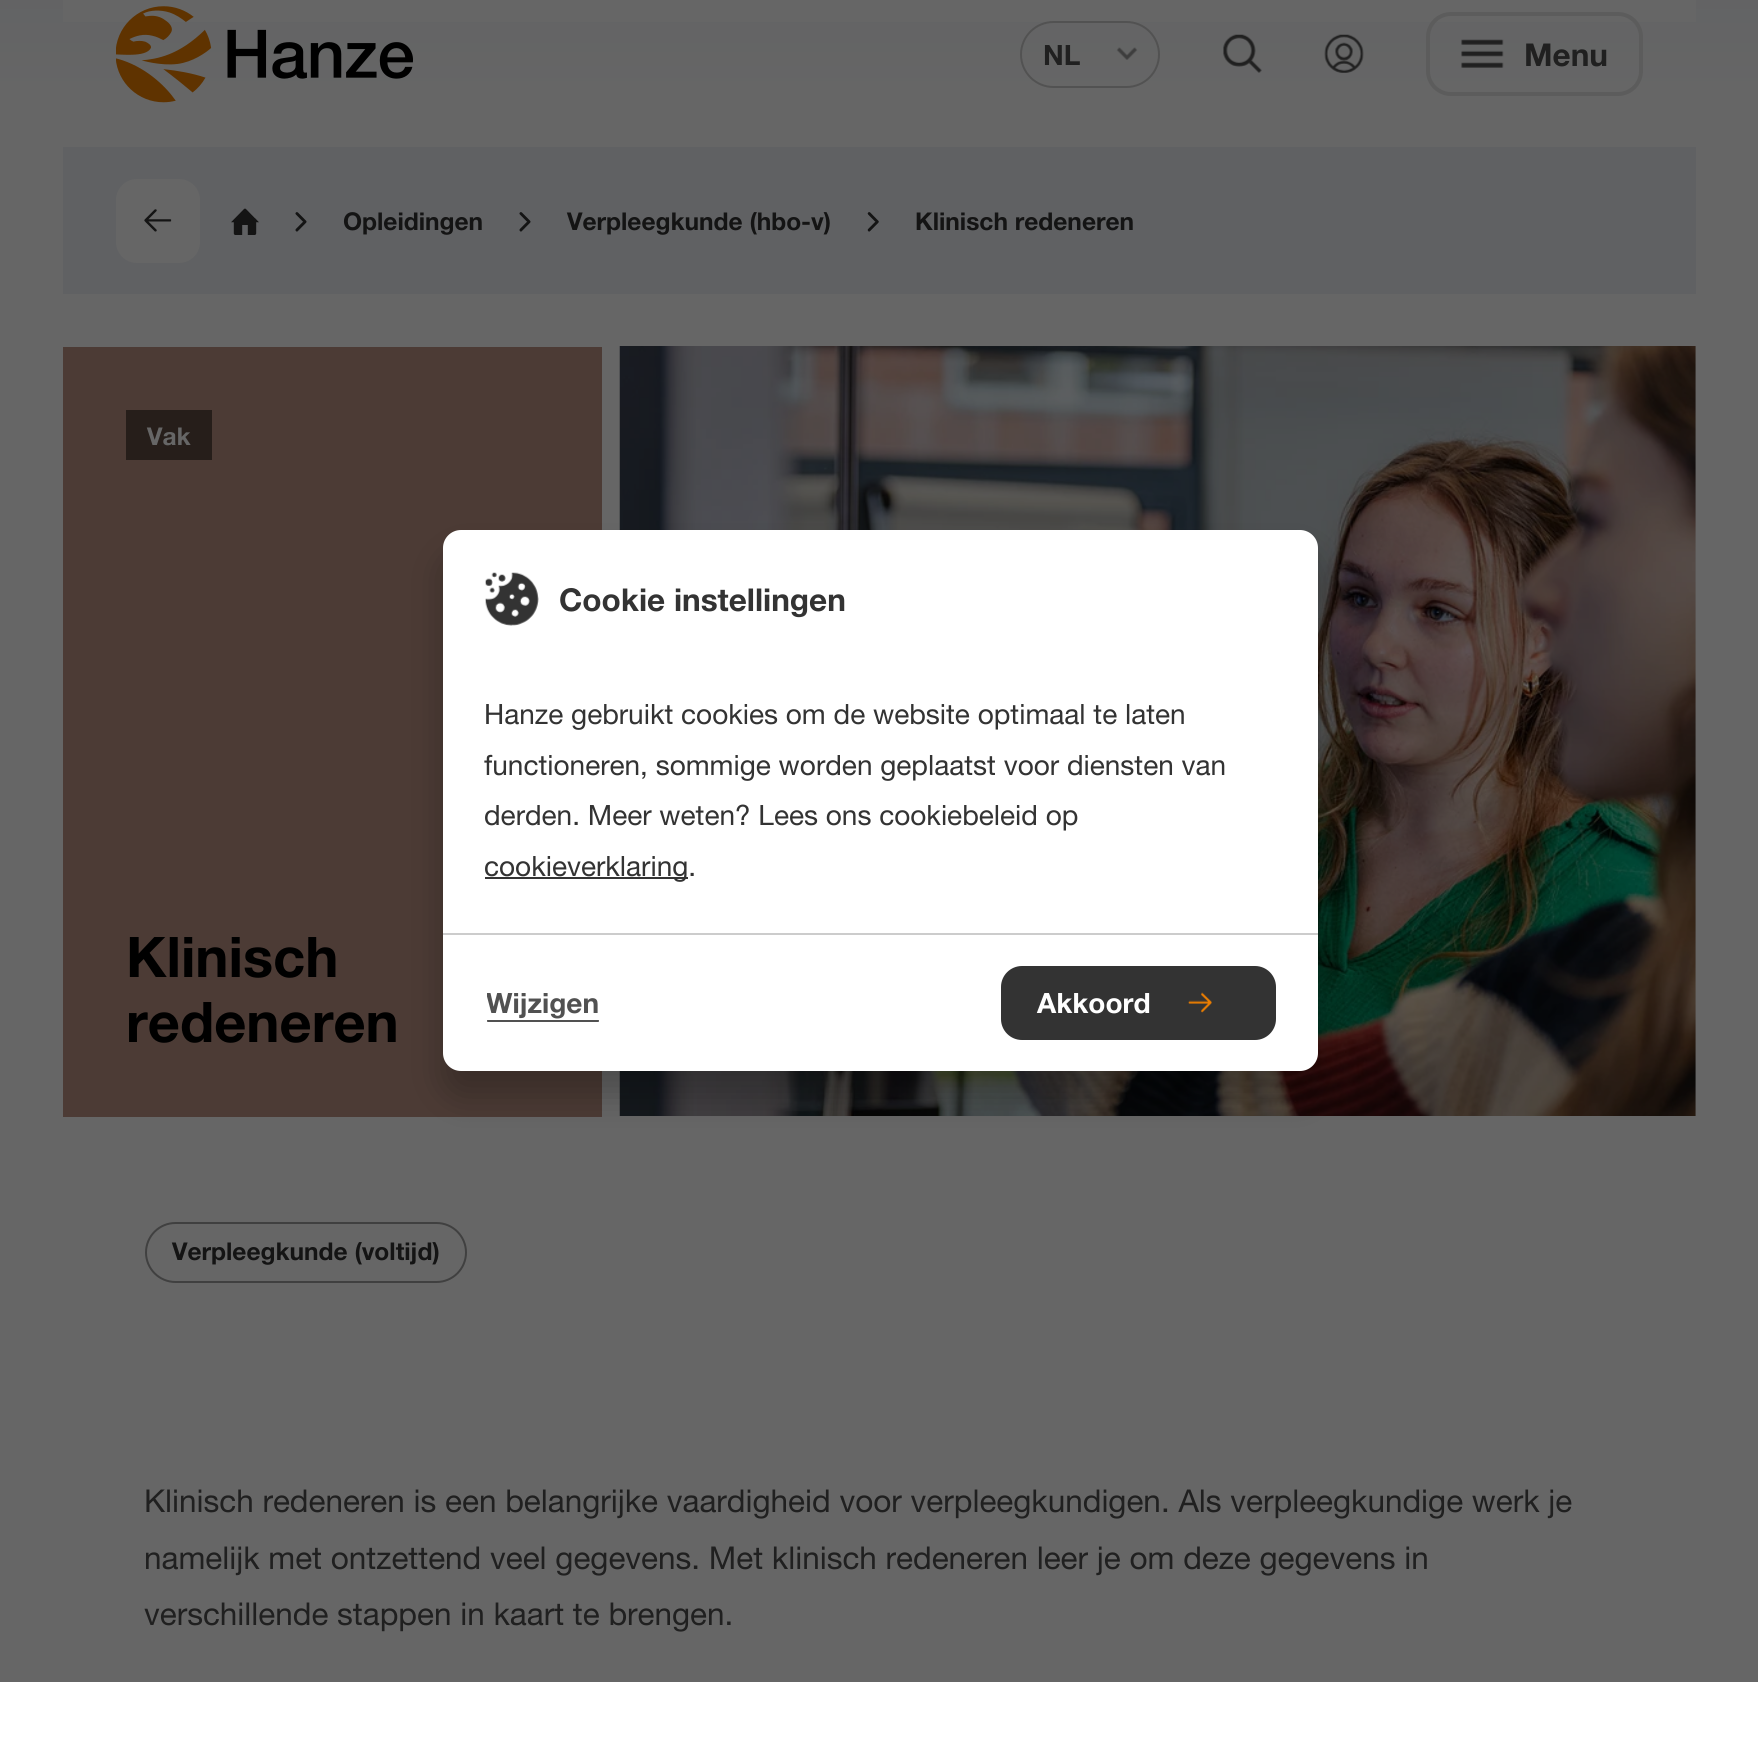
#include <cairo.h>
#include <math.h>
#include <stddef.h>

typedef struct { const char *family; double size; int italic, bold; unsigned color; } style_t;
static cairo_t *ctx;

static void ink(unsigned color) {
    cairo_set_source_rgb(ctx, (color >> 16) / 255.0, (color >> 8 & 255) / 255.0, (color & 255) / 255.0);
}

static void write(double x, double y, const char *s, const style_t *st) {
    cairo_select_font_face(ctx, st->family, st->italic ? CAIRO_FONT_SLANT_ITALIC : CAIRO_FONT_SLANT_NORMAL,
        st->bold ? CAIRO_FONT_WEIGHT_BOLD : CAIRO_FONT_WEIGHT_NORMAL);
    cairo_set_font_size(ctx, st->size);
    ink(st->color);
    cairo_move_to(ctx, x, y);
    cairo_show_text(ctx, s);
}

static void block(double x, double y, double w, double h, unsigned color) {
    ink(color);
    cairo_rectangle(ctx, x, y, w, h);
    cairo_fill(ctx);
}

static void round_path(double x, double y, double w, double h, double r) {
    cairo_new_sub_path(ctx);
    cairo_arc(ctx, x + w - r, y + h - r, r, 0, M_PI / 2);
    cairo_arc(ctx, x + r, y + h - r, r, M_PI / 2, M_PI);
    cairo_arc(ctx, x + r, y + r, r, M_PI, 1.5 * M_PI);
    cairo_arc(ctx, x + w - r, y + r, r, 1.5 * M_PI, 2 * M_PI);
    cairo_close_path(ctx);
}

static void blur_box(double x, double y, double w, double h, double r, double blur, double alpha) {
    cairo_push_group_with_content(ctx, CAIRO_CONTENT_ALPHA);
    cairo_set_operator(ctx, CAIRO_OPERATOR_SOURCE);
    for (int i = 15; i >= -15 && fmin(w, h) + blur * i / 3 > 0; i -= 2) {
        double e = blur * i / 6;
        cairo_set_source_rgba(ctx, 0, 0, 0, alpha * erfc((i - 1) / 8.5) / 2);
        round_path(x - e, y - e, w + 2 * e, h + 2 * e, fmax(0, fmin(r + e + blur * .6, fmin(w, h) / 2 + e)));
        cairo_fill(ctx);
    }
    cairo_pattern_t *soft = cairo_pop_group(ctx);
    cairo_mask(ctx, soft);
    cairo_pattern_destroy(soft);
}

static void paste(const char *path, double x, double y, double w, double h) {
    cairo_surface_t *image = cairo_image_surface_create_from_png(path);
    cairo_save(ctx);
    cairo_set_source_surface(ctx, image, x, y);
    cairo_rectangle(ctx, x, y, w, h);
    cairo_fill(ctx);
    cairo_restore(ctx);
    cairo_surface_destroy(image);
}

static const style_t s1 = {"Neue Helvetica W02", 28, 0, 1, 0x202020};
static const style_t s2 = {"Neue Helvetica W02", 31.5, 0, 1, 0x202020};
static const style_t s3 = {"Neue Helvetica W02", 24.5, 0, 1, 0x141414};
static const style_t s4 = {"Neue Helvetica W02", 24.5, 0, 1, 0x666666};
static const style_t s5 = {"Neue Helvetica W02", 56, 0, 1, 0x000000};
static const style_t s6 = {"Neue Helvetica W02", 31.5, 0, 0, 0x202020};
static const style_t s7 = {"Neue Helvetica W02", 31.5, 0, 1, 0x333333};
static const style_t s8 = {"Neue Helvetica W02", 28, 0, 0, 0x333333};
static const style_t s9 = {"Neue Helvetica W02", 28, 0, 1, 0x515151};
static const style_t s10 = {"Neue Helvetica W02", 28, 0, 1, 0xffffff};

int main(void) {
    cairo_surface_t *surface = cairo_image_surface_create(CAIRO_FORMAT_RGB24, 1758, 1762);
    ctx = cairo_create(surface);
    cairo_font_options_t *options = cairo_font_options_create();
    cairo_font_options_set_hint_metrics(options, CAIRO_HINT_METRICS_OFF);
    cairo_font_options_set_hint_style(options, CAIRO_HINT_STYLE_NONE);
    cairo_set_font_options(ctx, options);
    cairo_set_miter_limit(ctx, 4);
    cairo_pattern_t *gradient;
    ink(0xffffff);
    cairo_paint(ctx);
    gradient = cairo_pattern_create_linear(879, -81, 879, 1682);
    cairo_pattern_add_color_stop_rgba(gradient, 0, 0.376, 0.38, 0.388, 1);
    cairo_pattern_add_color_stop_rgba(gradient, 0.1, 0.4, 0.4, 0.4, 1);
    cairo_set_source(ctx, gradient);
    cairo_pattern_destroy(gradient);
    cairo_rectangle(ctx, 0, 0, 1758, 1682);
    cairo_fill(ctx);
    block(63, 0, 1633, 22, 0x666666);
    paste("pic1.png", 116, 6, 297, 97);
    round_path(1021, 22, 138, 65, 32.5);
    ink(0x525252);
    cairo_stroke(ctx);
    write(1043, 65, "NL", &s1);
    paste("pic2.png", 1116, 47, 22, 13);
    paste("pic3.png", 1223, 34, 39, 39);
    paste("pic4.png", 1324, 34, 40, 39);
    round_path(1428, 14, 213, 80, 23);
    ink(0x5c5c5c);
    cairo_set_line_width(ctx, 4);
    cairo_stroke(ctx);
    paste("pic5.png", 1461, 39, 43, 29);
    write(1524, 66, "Menu", &s2);
    block(63, 147, 1633, 147, 0x606163);
    ink(0x666666);
    round_path(116, 179, 84, 84, 21);
    cairo_fill(ctx);
    paste("pic6.png", 144, 209, 28, 23);
    paste("pic7.png", 231, 208, 28, 27);
    paste("pic8.png", 295, 212, 12, 20);
    write(343, 230, "Opleidingen", &s3);
    paste("pic8.png", 519, 212, 12, 20);
    write(567, 230, "Verpleegkunde (hbo-v)", &s3);
    paste("pic9.png", 867, 212, 12, 20);
    write(915, 230, "Klinisch redeneren", &s3);
    block(63, 347, 539, 770, 0x4c3b35);
    block(126, 410, 86, 50, 0x261e1a);
    write(147, 445, "Vak", &s4);
    write(126, 977, "Klinisch", &s5);
    write(126, 1042, "redeneren", &s5);
    paste("pic10.png", 619, 346, 1077, 770);
    round_path(146, 1223, 320, 59, 29.5);
    ink(0x404040);
    cairo_set_line_width(ctx, 2);
    cairo_stroke(ctx);
    write(172, 1260, "Verpleegkunde (voltijd)", &s3);
    write(144, 1512, "Klinisch redeneren is een belangrijke vaardigheid voor verpleegkundigen. Als verpleegkundige werk je", &s6);
    write(144, 1569, "namelijk met ontzettend veel gegevens. Met klinisch redeneren leer je om deze gegevens in", &s6);
    write(144, 1625, "verschillende stappen in kaart te brengen.", &s6);
    ink(0x000000);
    blur_box(443, 555, 875, 541, 18, 17.5, 0.25);
    ink(0xffffff);
    round_path(443, 530, 875, 541, 18);
    cairo_fill(ctx);
    paste("pic11.png", 485, 572, 54, 54);
    write(559, 611, "Cookie instellingen", &s7);
    write(484, 724, "Hanze gebruikt cookies om de website optimaal te laten", &s8);
    write(484, 775, "functioneren, sommige worden geplaatst voor diensten van", &s8);
    write(484, 825, "derden. Meer weten? Lees ons cookiebeleid op", &s8);
    block(485, 877, 203, 2, 0x333333);
    write(484, 876, "cookieverklaring.", &s8);
    block(443, 933, 875, 2, 0xcccccc);
    cairo_save(ctx);
    round_path(487, 968, 112, 70, 19);
    cairo_clip(ctx);
    write(486, 1013, "Wijzigen", &s9);
    block(487, 1020, 112, 2, 0x515151);
    cairo_restore(ctx);
    ink(0x333333);
    round_path(1002, 967, 273, 72, 20);
    cairo_fill_preserve(ctx);
    cairo_stroke(ctx);
    write(1037, 1013, "Akkoord", &s10);
    paste("pic12.png", 1188, 992, 24, 21);
    cairo_surface_write_to_png(surface, "screenshot.png");
    cairo_font_options_destroy(options);
    cairo_destroy(ctx);
    cairo_surface_destroy(surface);
    return 0;
}
